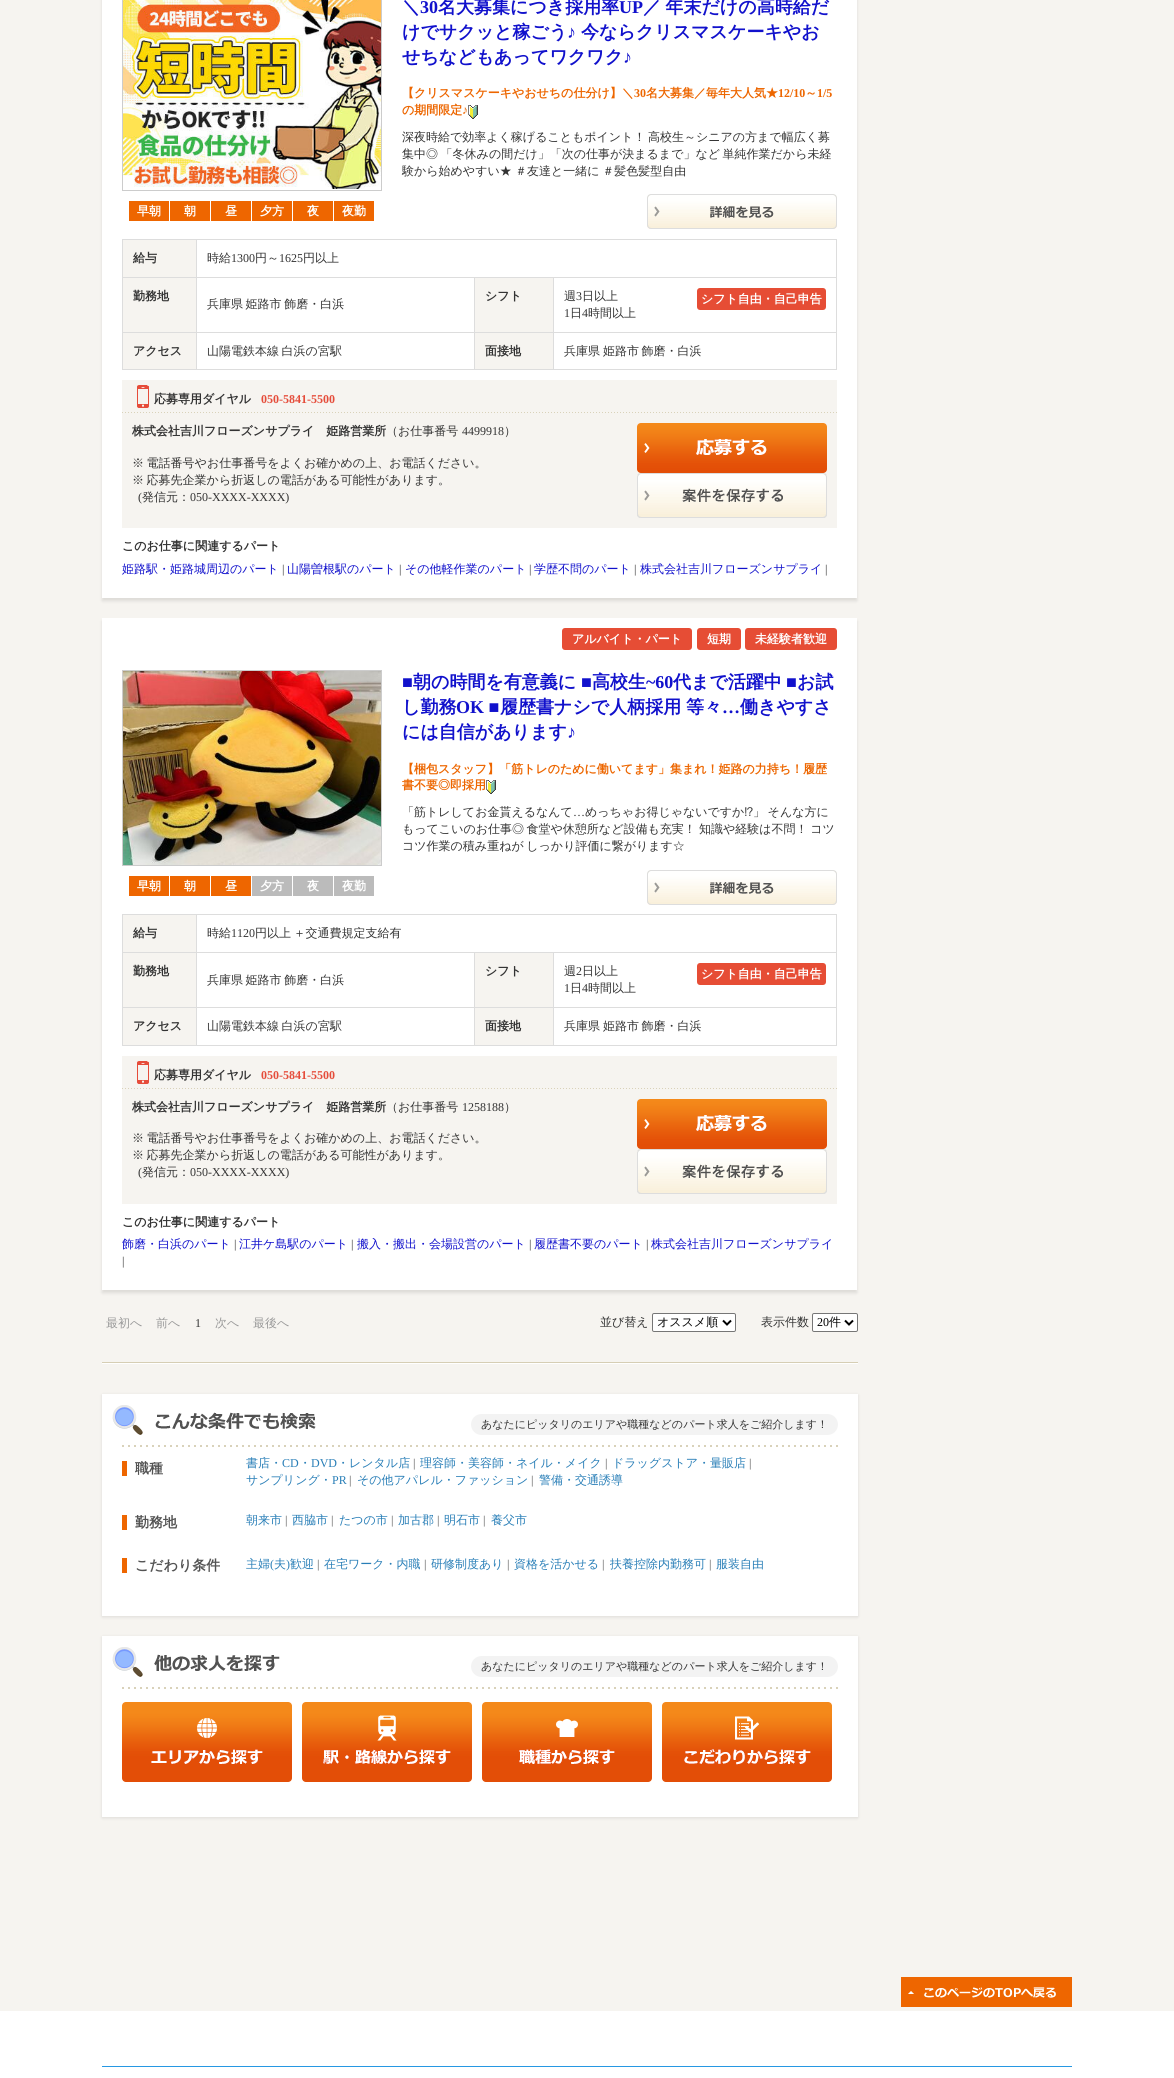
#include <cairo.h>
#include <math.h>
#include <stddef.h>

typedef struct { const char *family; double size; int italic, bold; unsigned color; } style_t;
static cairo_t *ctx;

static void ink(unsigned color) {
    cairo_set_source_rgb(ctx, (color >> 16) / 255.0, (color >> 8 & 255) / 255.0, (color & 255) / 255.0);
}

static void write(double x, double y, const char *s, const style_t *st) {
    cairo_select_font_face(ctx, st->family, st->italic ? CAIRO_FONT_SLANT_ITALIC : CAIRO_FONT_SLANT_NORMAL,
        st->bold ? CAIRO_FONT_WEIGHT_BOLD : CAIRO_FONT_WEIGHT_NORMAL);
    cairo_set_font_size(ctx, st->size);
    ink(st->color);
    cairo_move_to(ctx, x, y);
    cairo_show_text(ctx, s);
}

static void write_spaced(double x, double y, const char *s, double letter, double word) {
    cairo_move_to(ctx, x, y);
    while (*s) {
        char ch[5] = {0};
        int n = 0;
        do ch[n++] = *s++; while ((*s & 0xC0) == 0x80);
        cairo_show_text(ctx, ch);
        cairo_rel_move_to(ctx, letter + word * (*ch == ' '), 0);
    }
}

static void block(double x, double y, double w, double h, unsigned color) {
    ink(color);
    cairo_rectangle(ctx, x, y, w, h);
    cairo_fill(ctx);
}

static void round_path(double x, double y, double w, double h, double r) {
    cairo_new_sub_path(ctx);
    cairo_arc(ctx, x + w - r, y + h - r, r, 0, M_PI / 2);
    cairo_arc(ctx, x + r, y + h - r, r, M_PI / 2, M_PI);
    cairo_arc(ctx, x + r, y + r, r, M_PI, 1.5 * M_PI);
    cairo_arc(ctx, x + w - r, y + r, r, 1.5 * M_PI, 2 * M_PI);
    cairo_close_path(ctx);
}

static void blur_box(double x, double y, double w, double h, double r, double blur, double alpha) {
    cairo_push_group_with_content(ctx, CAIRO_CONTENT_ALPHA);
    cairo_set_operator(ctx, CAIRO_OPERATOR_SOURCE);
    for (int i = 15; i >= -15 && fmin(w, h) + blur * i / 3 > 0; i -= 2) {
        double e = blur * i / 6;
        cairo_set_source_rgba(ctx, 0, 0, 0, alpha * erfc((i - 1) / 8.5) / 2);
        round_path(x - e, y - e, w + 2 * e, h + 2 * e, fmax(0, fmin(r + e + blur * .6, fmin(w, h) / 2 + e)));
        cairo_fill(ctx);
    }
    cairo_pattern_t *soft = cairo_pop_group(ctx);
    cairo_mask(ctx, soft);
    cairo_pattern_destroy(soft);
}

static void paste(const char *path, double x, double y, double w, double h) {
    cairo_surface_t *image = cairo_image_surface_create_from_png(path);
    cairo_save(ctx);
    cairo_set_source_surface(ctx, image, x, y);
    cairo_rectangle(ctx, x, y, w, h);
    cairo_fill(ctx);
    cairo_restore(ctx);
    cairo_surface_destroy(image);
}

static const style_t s1 = {"WenQuanYi Zen Hei", 18, 0, 1, 0x1111cc};
static const style_t s2 = {"Liberation Serif", 18, 0, 1, 0x1111cc};
static const style_t s3 = {"WenQuanYi Zen Hei", 12, 0, 1, 0xed6600};
static const style_t s4 = {"Liberation Serif", 12, 0, 1, 0xed6600};
static const style_t s5 = {"WenQuanYi Zen Hei Medium", 12, 0, 0, 0x333333};
static const style_t s6 = {"WenQuanYi Zen Hei", 12, 0, 1, 0xffffff};
static const style_t s7 = {"WenQuanYi Zen Hei", 12, 0, 1, 0x333333};
static const style_t s8 = {"Liberation Serif", 12, 0, 0, 0x333333};
static const style_t s9 = {"Liberation Serif", 12, 0, 1, 0xe54c3a};
static const style_t s10 = {"WenQuanYi Zen Hei Medium", 12, 0, 0, 0x1111cc};
static const style_t s11 = {"IPAPGothic", 12, 0, 0, 0x333333};
static const style_t s12 = {"WenQuanYi Zen Hei Medium", 12, 0, 0, 0x999999};
static const style_t s13 = {"WenQuanYi Zen Hei Medium", 12, 0, 0, 0x000000};
static const style_t s14 = {"Liberation Serif", 12, 0, 0, 0x000000};
static const style_t s15 = {"WenQuanYi Zen Hei Medium", 11, 0, 0, 0x333333};
static const style_t s16 = {"WenQuanYi Zen Hei", 14, 0, 1, 0x535353};
static const style_t s17 = {"WenQuanYi Zen Hei Medium", 12, 0, 0, 0x287eb7};
static const style_t s18 = {"Liberation Serif", 12, 0, 0, 0x287eb7};
static const style_t s19 = {"Liberation Serif", 12, 0, 0, 0x535353};

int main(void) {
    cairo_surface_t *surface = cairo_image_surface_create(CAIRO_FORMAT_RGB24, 1174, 2078);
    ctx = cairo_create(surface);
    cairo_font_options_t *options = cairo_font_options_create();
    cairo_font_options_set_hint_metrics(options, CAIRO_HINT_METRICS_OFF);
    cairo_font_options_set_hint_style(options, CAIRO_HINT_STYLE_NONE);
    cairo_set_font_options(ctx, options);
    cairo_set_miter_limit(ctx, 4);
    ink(0xf6f4f0);
    cairo_paint(ctx);
    ink(0x000000);
    blur_box(102, -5, 755, 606, 0, 1.5, 0.1);
    block(102, 0, 755, 598, 0xffffff);
    write(402, 13, "＼", &s1);
    write(420, 13, "30", &s2);
    write(438, 13, "名大募集につき採用率", &s1);
    write(619, 13, "UP", &s2);
    cairo_select_font_face(ctx, "WenQuanYi Zen Hei", CAIRO_FONT_SLANT_NORMAL, CAIRO_FONT_WEIGHT_BOLD);
    write_spaced(643, 13, "／ 年末だけの高時給だ", 0, -1);
    write(402, 38, "けでサクッと稼ごう", &s1);
    write(567, 38, "♪", &s2);
    write(581, 38, "今ならクリスマスケーキやお", &s1);
    write(402, 63, "せちなどもあってワクワク", &s1);
    write(623, 63, "♪", &s2);
    write(402, 97, "【クリスマスケーキやおせちの仕分け】＼", &s3);
    write(634, 97, "30", &s4);
    write(646, 97, "名大募集／毎年大人気★", &s3);
    write(778, 97, "12/10", &s4);
    write(805, 97, "～", &s3);
    write(817, 97, "1/5", &s4);
    write(402, 114, "の期間限定", &s3);
    write(462, 114, "♪", &s4);
    paste("pic1.png", 468, 105, 10, 14);
    cairo_select_font_face(ctx, "WenQuanYi Zen Hei Medium", CAIRO_FONT_SLANT_NORMAL, CAIRO_FONT_WEIGHT_NORMAL);
    ink(0x333333);
    write_spaced(402, 141, "深夜時給で効率よく稼げることもポイント！ 高校生～シニアの方まで幅広く募", 0, -1);
    write_spaced(402, 158, "集中◎ 「冬休みの間だけ」「次の仕事が決まるまで」など 単純作業だから未経", 0, -1);
    write(402, 175, "験から始めやすい★", &s5);
    write_spaced(515, 175, "＃友達と一緒に ＃髪色髪型自由", 0, -1);
    paste("pic2.png", 647, 194, 190, 35);
    cairo_rectangle(ctx, 122.5, -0.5, 259, 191);
    ink(0xcccccc);
    cairo_set_line_width(ctx, 1);
    cairo_stroke(ctx);
    paste("pic3.png", 123, 0, 258, 189);
    block(129, 201, 40, 20, 0xee6600);
    write(137, 215, "早朝", &s6);
    block(170, 201, 40, 20, 0xee6600);
    write(184, 215, "朝", &s6);
    block(211, 201, 40, 20, 0xee6600);
    write(225, 215, "昼", &s6);
    block(252, 201, 40, 20, 0xee6600);
    write(260, 215, "夕方", &s6);
    block(293, 201, 40, 20, 0xee6600);
    write(307, 215, "夜", &s6);
    block(334, 201, 40, 20, 0xee6600);
    write(342, 215, "夜勤", &s6);
    block(123, 240, 73, 37, 0xf6f4f0);
    block(196, 239, 641, 1, 0xdddddd);
    block(553, 277, 284, 1, 0xdddddd);
    block(553, 332, 284, 1, 0xdddddd);
    block(836, 332, 1, 38, 0xdddddd);
    block(553, 369, 284, 1, 0xdddddd);
    block(553, 332, 1, 38, 0xdddddd);
    block(474, 332, 80, 1, 0xdddddd);
    block(553, 277, 1, 56, 0xdddddd);
    block(474, 277, 80, 1, 0xdddddd);
    block(474, 369, 80, 1, 0xdddddd);
    block(474, 332, 1, 38, 0xdddddd);
    block(196, 332, 279, 1, 0xdddddd);
    block(474, 277, 1, 56, 0xdddddd);
    block(196, 277, 279, 1, 0xdddddd);
    block(196, 369, 279, 1, 0xdddddd);
    block(196, 332, 1, 38, 0xdddddd);
    block(122, 332, 75, 1, 0xdddddd);
    block(196, 277, 1, 56, 0xdddddd);
    block(122, 277, 75, 1, 0xdddddd);
    block(196, 239, 1, 39, 0xdddddd);
    block(122, 239, 75, 1, 0xdddddd);
    block(122, 369, 75, 1, 0xdddddd);
    block(122, 332, 1, 38, 0xdddddd);
    block(122, 277, 1, 56, 0xdddddd);
    block(122, 239, 1, 39, 0xdddddd);
    write(133, 262, "給与", &s7);
    block(836, 277, 1, 56, 0xdddddd);
    block(836, 239, 1, 39, 0xdddddd);
    write(207, 262, "時給", &s5);
    write(231, 262, "1300", &s8);
    write(255, 262, "円～", &s5);
    write(279, 262, "1625", &s8);
    write(303, 262, "円以上", &s5);
    block(123, 278, 73, 54, 0xf6f4f0);
    write(133, 300, "勤務地", &s7);
    cairo_select_font_face(ctx, "WenQuanYi Zen Hei Medium", CAIRO_FONT_SLANT_NORMAL, CAIRO_FONT_WEIGHT_NORMAL);
    write_spaced(207, 308, "兵庫県 姫路市 飾磨・白浜", 0, -1);
    block(475, 278, 78, 54, 0xf6f4f0);
    write(485, 300, "シフト", &s7);
    write(564, 300, "週", &s5);
    write(576, 300, "3", &s8);
    write(582, 300, "日以上", &s5);
    write(564, 317, "1", &s8);
    write(570, 317, "日", &s5);
    write(582, 317, "4", &s8);
    write(588, 317, "時間以上", &s5);
    ink(0xe64d35);
    round_path(697, 288, 129, 22, 3);
    cairo_fill(ctx);
    write(701, 303, "シフト自由・自己申告", &s6);
    block(123, 333, 73, 36, 0xf6f4f0);
    write(133, 355, "アクセス", &s7);
    cairo_select_font_face(ctx, "WenQuanYi Zen Hei Medium", CAIRO_FONT_SLANT_NORMAL, CAIRO_FONT_WEIGHT_NORMAL);
    write_spaced(207, 355, "山陽電鉄本線 白浜の宮駅", 0, -1);
    block(475, 333, 78, 36, 0xf6f4f0);
    write(485, 355, "面接地", &s7);
    write(564, 355, "兵庫県", &s5);
    write_spaced(603, 355, "姫路市 飾磨・白浜", 0, -1);
    block(122, 380, 715, 148, 0xf6f4f0);
    paste("pic4.png", 122, 412, 715, 1);
    paste("pic5.png", 137, 385, 12, 23);
    write(154, 403, "応募専用ダイヤル", &s7);
    write(261, 403, "050-5841-5500", &s9);
    write(132, 435, "株式会社吉川フローズンサプライ　姫路営業所", &s7);
    write(386, 435, "（お仕事番号", &s5);
    write(462, 435, "4499918", &s8);
    write(504, 435, "）", &s5);
    write_spaced(132, 467, "※ 電話番号やお仕事番号をよくお確かめの上、お電話ください。", 0, -1);
    write_spaced(132, 484, "※ 応募先企業から折返しの電話がある可能性があります。", 0, -1);
    write(138, 501, "(", &s8);
    write(142, 501, "発信元：", &s5);
    write(190, 501, "050-XXXX-XXXX)", &s8);
    paste("pic6.png", 637, 423, 190, 50);
    paste("pic7.png", 637, 473, 190, 45);
    write(122, 550, "このお仕事に関連するパート", &s7);
    write(122, 573, "姫路駅・姫路城周辺のパート", &s10);
    write(282, 573, "|", &s8);
    write(287, 573, "山陽曽根駅のパート", &s10);
    write(399, 573, "|", &s8);
    write(405, 573, "その他軽作業のパート", &s10);
    write(529, 573, "|", &s8);
    write(534, 573, "学歴不問のパート", &s10);
    write(634, 573, "|", &s8);
    write(640, 573, "株式会社吉川フローズンサプライ", &s10);
    write(825, 573, "|", &s8);
    ink(0x000000);
    blur_box(102, 621, 755, 672, 0, 1.5, 0.1);
    block(102, 618, 755, 672, 0xffffff);
    ink(0xe64d35);
    round_path(562, 628, 130, 22, 3);
    cairo_fill(ctx);
    write(572, 643, "アルバイト・パート", &s6);
    ink(0xe64d35);
    round_path(697, 628, 44, 22, 3);
    cairo_fill(ctx);
    write(707, 643, "短期", &s6);
    ink(0xe64d35);
    round_path(745, 628, 92, 22, 3);
    cairo_fill(ctx);
    write(755, 643, "未経験者歓迎", &s6);
    write(402, 688, "■", &s2);
    write(413, 688, "朝の時間を有意義に", &s1);
    write(581, 688, "■", &s2);
    write(592, 688, "高校生", &s1);
    write(646, 688, "~60", &s2);
    write(673, 688, "代まで活躍中", &s1);
    write(786, 688, "■", &s2);
    write(797, 688, "お試", &s1);
    write(402, 713, "し勤務", &s1);
    write(456, 713, "OK ■", &s2);
    write(500, 713, "履歴書ナシで人柄採用", &s1);
    write(686, 713, "等々", &s1);
    write(722, 713, "…", &s2);
    write(740, 713, "働きやすさ", &s1);
    write(402, 738, "には自信があります", &s1);
    write(567, 738, "♪", &s2);
    write(402, 773, "【梱包スタッフ】「筋トレのために働いてます」集まれ！姫路の力持ち！履歴", &s3);
    write(402, 789, "書不要◎即採用", &s3);
    paste("pic1.png", 486, 780, 10, 14);
    write(402, 816, "「筋トレしてお金貰えるなんて", &s5);
    write(573, 816, "…", &s8);
    write(585, 816, "めっちゃお得じゃないですか", &s5);
    write(744, 816, "⁉", &s11);
    cairo_select_font_face(ctx, "WenQuanYi Zen Hei Medium", CAIRO_FONT_SLANT_NORMAL, CAIRO_FONT_WEIGHT_NORMAL);
    write_spaced(753, 816, "」 そんな方に", 0, -1);
    write_spaced(402, 833, "もってこいのお仕事◎ 食堂や休憩所など設備も充実！", 0, -1);
    write_spaced(699, 833, "知識や経験は不問！ コツ", 0, -1);
    write_spaced(402, 850, "コツ作業の積み重ねが しっかり評価に繋がります☆", 0, -1);
    paste("pic2.png", 647, 870, 190, 35);
    cairo_rectangle(ctx, 122.5, 670.5, 259, 195);
    ink(0xcccccc);
    cairo_stroke(ctx);
    paste("pic8.png", 123, 671, 258, 194);
    block(129, 876, 40, 20, 0xee6600);
    write(137, 890, "早朝", &s6);
    block(170, 876, 40, 20, 0xee6600);
    write(184, 890, "朝", &s6);
    block(211, 876, 40, 20, 0xee6600);
    write(225, 890, "昼", &s6);
    block(252, 876, 40, 20, 0xbbbbbb);
    write(260, 890, "夕方", &s6);
    block(293, 876, 40, 20, 0xbbbbbb);
    write(307, 890, "夜", &s6);
    block(334, 876, 40, 20, 0xbbbbbb);
    write(342, 890, "夜勤", &s6);
    block(123, 915, 73, 37, 0xf6f4f0);
    block(196, 914, 641, 1, 0xdddddd);
    block(553, 952, 284, 1, 0xdddddd);
    block(553, 1007, 284, 1, 0xdddddd);
    block(836, 1007, 1, 39, 0xdddddd);
    block(553, 1045, 284, 1, 0xdddddd);
    block(553, 1007, 1, 39, 0xdddddd);
    block(474, 1007, 80, 1, 0xdddddd);
    block(553, 952, 1, 56, 0xdddddd);
    block(474, 952, 80, 1, 0xdddddd);
    block(474, 1045, 80, 1, 0xdddddd);
    block(474, 1007, 1, 39, 0xdddddd);
    block(196, 1007, 279, 1, 0xdddddd);
    block(474, 952, 1, 56, 0xdddddd);
    block(196, 952, 279, 1, 0xdddddd);
    block(196, 1045, 279, 1, 0xdddddd);
    block(196, 1007, 1, 39, 0xdddddd);
    block(122, 1007, 75, 1, 0xdddddd);
    block(196, 952, 1, 56, 0xdddddd);
    block(122, 952, 75, 1, 0xdddddd);
    block(196, 914, 1, 39, 0xdddddd);
    block(122, 914, 75, 1, 0xdddddd);
    block(122, 1045, 75, 1, 0xdddddd);
    block(122, 1007, 1, 39, 0xdddddd);
    block(122, 952, 1, 56, 0xdddddd);
    block(122, 914, 1, 39, 0xdddddd);
    write(133, 937, "給与", &s7);
    block(836, 952, 1, 56, 0xdddddd);
    block(836, 914, 1, 39, 0xdddddd);
    write(207, 937, "時給", &s5);
    write(231, 937, "1120", &s8);
    cairo_select_font_face(ctx, "WenQuanYi Zen Hei Medium", CAIRO_FONT_SLANT_NORMAL, CAIRO_FONT_WEIGHT_NORMAL);
    write_spaced(255, 937, "円以上 ＋交通費規定支給有", 0, -1);
    block(123, 953, 73, 54, 0xf6f4f0);
    write(133, 975, "勤務地", &s7);
    block(475, 953, 78, 54, 0xf6f4f0);
    write(485, 975, "シフト", &s7);
    write(564, 975, "週", &s5);
    write(576, 975, "2", &s8);
    write(582, 975, "日以上", &s5);
    write(564, 992, "1", &s8);
    write(570, 992, "日", &s5);
    write(582, 992, "4", &s8);
    write(588, 992, "時間以上", &s5);
    ink(0xe64d35);
    round_path(697, 963, 129, 22, 3);
    cairo_fill(ctx);
    write(701, 978, "シフト自由・自己申告", &s6);
    cairo_select_font_face(ctx, "WenQuanYi Zen Hei Medium", CAIRO_FONT_SLANT_NORMAL, CAIRO_FONT_WEIGHT_NORMAL);
    ink(0x333333);
    write_spaced(207, 984, "兵庫県 姫路市 飾磨・白浜", 0, -1);
    block(123, 1008, 73, 37, 0xf6f4f0);
    write(133, 1030, "アクセス", &s7);
    cairo_select_font_face(ctx, "WenQuanYi Zen Hei Medium", CAIRO_FONT_SLANT_NORMAL, CAIRO_FONT_WEIGHT_NORMAL);
    write_spaced(207, 1030, "山陽電鉄本線 白浜の宮駅", 0, -1);
    block(475, 1008, 78, 37, 0xf6f4f0);
    write(485, 1030, "面接地", &s7);
    write(564, 1030, "兵庫県", &s5);
    write_spaced(603, 1030, "姫路市 飾磨・白浜", 0, -1);
    block(122, 1056, 715, 148, 0xf6f4f0);
    paste("pic4.png", 122, 1088, 715, 1);
    paste("pic5.png", 137, 1061, 12, 23);
    write(154, 1079, "応募専用ダイヤル", &s7);
    write(261, 1079, "050-5841-5500", &s9);
    write(132, 1111, "株式会社吉川フローズンサプライ　姫路営業所", &s7);
    write(386, 1111, "（お仕事番号", &s5);
    write(462, 1111, "1258188", &s8);
    write(504, 1111, "）", &s5);
    write_spaced(132, 1142, "※ 電話番号やお仕事番号をよくお確かめの上、お電話ください。", 0, -1);
    write_spaced(132, 1159, "※ 応募先企業から折返しの電話がある可能性があります。", 0, -1);
    write(138, 1176, "(", &s8);
    write(142, 1176, "発信元：", &s5);
    write(190, 1176, "050-XXXX-XXXX)", &s8);
    paste("pic6.png", 637, 1099, 190, 50);
    paste("pic7.png", 637, 1149, 190, 45);
    write(122, 1226, "このお仕事に関連するパート", &s7);
    write(122, 1248, "飾磨・白浜のパート", &s10);
    write(234, 1248, "|", &s8);
    write(239, 1248, "江井ケ島駅のパート", &s10);
    write(351, 1248, "|", &s8);
    write(357, 1248, "搬入・搬出・会場設営のパート", &s10);
    write(529, 1248, "|", &s8);
    write(534, 1248, "履歴書不要のパート", &s10);
    write(646, 1248, "|", &s8);
    write(651, 1248, "株式会社吉川フローズンサプライ", &s10);
    write(122, 1265, "|", &s8);
    write(106, 1327, "最初へ", &s12);
    write(156, 1327, "前へ", &s12);
    write(195, 1327, "1", &s8);
    write(215, 1327, "次へ", &s12);
    write(253, 1327, "最後へ", &s12);
    write(600, 1326, "並び替え", &s5);
    ink(0xffffff);
    round_path(652.5, 1313.5, 83, 18, 1.5);
    cairo_fill_preserve(ctx);
    ink(0x767676);
    cairo_stroke(ctx);
    cairo_new_path(ctx);
    cairo_move_to(ctx, 723, 1320.5);
    cairo_line_to(ctx, 727, 1324.5);
    cairo_line_to(ctx, 731, 1320.5);
    ink(0x000000);
    cairo_set_line_width(ctx, 2);
    cairo_stroke(ctx);
    write(657, 1326, "オススメ順", &s13);
    write(761, 1326, "表示件数", &s5);
    ink(0xffffff);
    round_path(812.5, 1313.5, 45, 18, 1.5);
    cairo_fill_preserve(ctx);
    ink(0x767676);
    cairo_set_line_width(ctx, 1);
    cairo_stroke(ctx);
    cairo_new_path(ctx);
    cairo_move_to(ctx, 845, 1320.5);
    cairo_line_to(ctx, 849, 1324.5);
    cairo_line_to(ctx, 853, 1320.5);
    ink(0x000000);
    cairo_set_line_width(ctx, 2);
    cairo_stroke(ctx);
    write(817, 1326, "20", &s14);
    write(829, 1326, "件", &s13);
    block(102, 1363, 756, 1, 0xffffff);
    block(102, 1362, 756, 1, 0xd6ceb4);
    ink(0x000000);
    blur_box(102, 1395, 756, 222, 0, 1.5, 0.1);
    block(102, 1394, 756, 222, 0xffffff);
    paste("pic9.png", 112, 1405, 204, 30);
    ink(0xf3f3f3);
    round_path(471, 1414, 367, 21, 10.5);
    cairo_fill(ctx);
    write(481, 1428, "あなたにピッタリのエリアや職種などのパート求人をご紹介します！", &s15);
    paste("pic10.png", 122, 1445, 716, 2);
    write(135, 1473, "職種", &s16);
    block(122, 1461, 5, 15, 0xee6600);
    write(246, 1467, "書店・", &s17);
    write(282, 1467, "CD", &s18);
    write(299, 1467, "・", &s17);
    write(311, 1467, "DVD", &s18);
    write(337, 1467, "・レンタル店", &s17);
    write(413, 1467, "|", &s19);
    write(420, 1467, "理容師・美容師・ネイル・メイク", &s17);
    write(605, 1467, "|", &s19);
    write(612, 1467, "ドラッグストア・量販店", &s17);
    write(749, 1467, "|", &s19);
    write(246, 1484, "サンプリング・", &s17);
    write(332, 1484, "PR", &s18);
    write(349, 1484, "|", &s19);
    write(357, 1484, "その他アパレル・ファッション", &s17);
    write(531, 1484, "|", &s19);
    write(539, 1484, "警備・交通誘導", &s17);
    write(135, 1527, "勤務地", &s16);
    block(122, 1515, 5, 15, 0xee6600);
    write(246, 1524, "朝来市", &s17);
    write(285, 1524, "|", &s19);
    write(292, 1524, "西脇市", &s17);
    write(331, 1524, "|", &s19);
    write(339, 1524, "たつの市", &s17);
    write(391, 1524, "|", &s19);
    write(398, 1524, "加古郡", &s17);
    write(437, 1524, "|", &s19);
    write(444, 1524, "明石市", &s17);
    write(483, 1524, "|", &s19);
    write(491, 1524, "養父市", &s17);
    write(135, 1570, "こだわり条件", &s16);
    block(122, 1558, 5, 15, 0xee6600);
    write(246, 1568, "主婦", &s17);
    write(270, 1568, "(", &s18);
    write(274, 1568, "夫", &s17);
    write(286, 1568, ")", &s18);
    write(290, 1568, "歓迎", &s17);
    write(317, 1568, "|", &s19);
    write(324, 1568, "在宅ワーク・内職", &s17);
    write(424, 1568, "|", &s19);
    write(431, 1568, "研修制度あり", &s17);
    write(507, 1568, "|", &s19);
    write(514, 1568, "資格を活かせる", &s17);
    write(602, 1568, "|", &s19);
    write(610, 1568, "扶養控除内勤務可", &s17);
    write(709, 1568, "|", &s19);
    write(716, 1568, "服装自由", &s17);
    ink(0x000000);
    blur_box(102, 1637, 756, 181, 0, 1.5, 0.1);
    block(102, 1636, 756, 181, 0xffffff);
    paste("pic11.png", 112, 1647, 168, 30);
    ink(0xf3f3f3);
    round_path(471, 1656, 367, 21, 10.5);
    cairo_fill(ctx);
    write(481, 1670, "あなたにピッタリのエリアや職種などのパート求人をご紹介します！", &s15);
    paste("pic10.png", 122, 1687, 716, 2);
    paste("pic12.png", 122, 1702, 170, 80);
    paste("pic13.png", 302, 1702, 170, 80);
    paste("pic14.png", 482, 1702, 170, 80);
    paste("pic15.png", 662, 1702, 170, 80);
    paste("pic16.png", 901, 1977, 171, 30);
    block(0, 2011, 1174, 67, 0xffffff);
    block(102, 2066, 970, 1, 0x2798e3);
    cairo_surface_write_to_png(surface, "screenshot.png");
    cairo_font_options_destroy(options);
    cairo_destroy(ctx);
    cairo_surface_destroy(surface);
    return 0;
}
